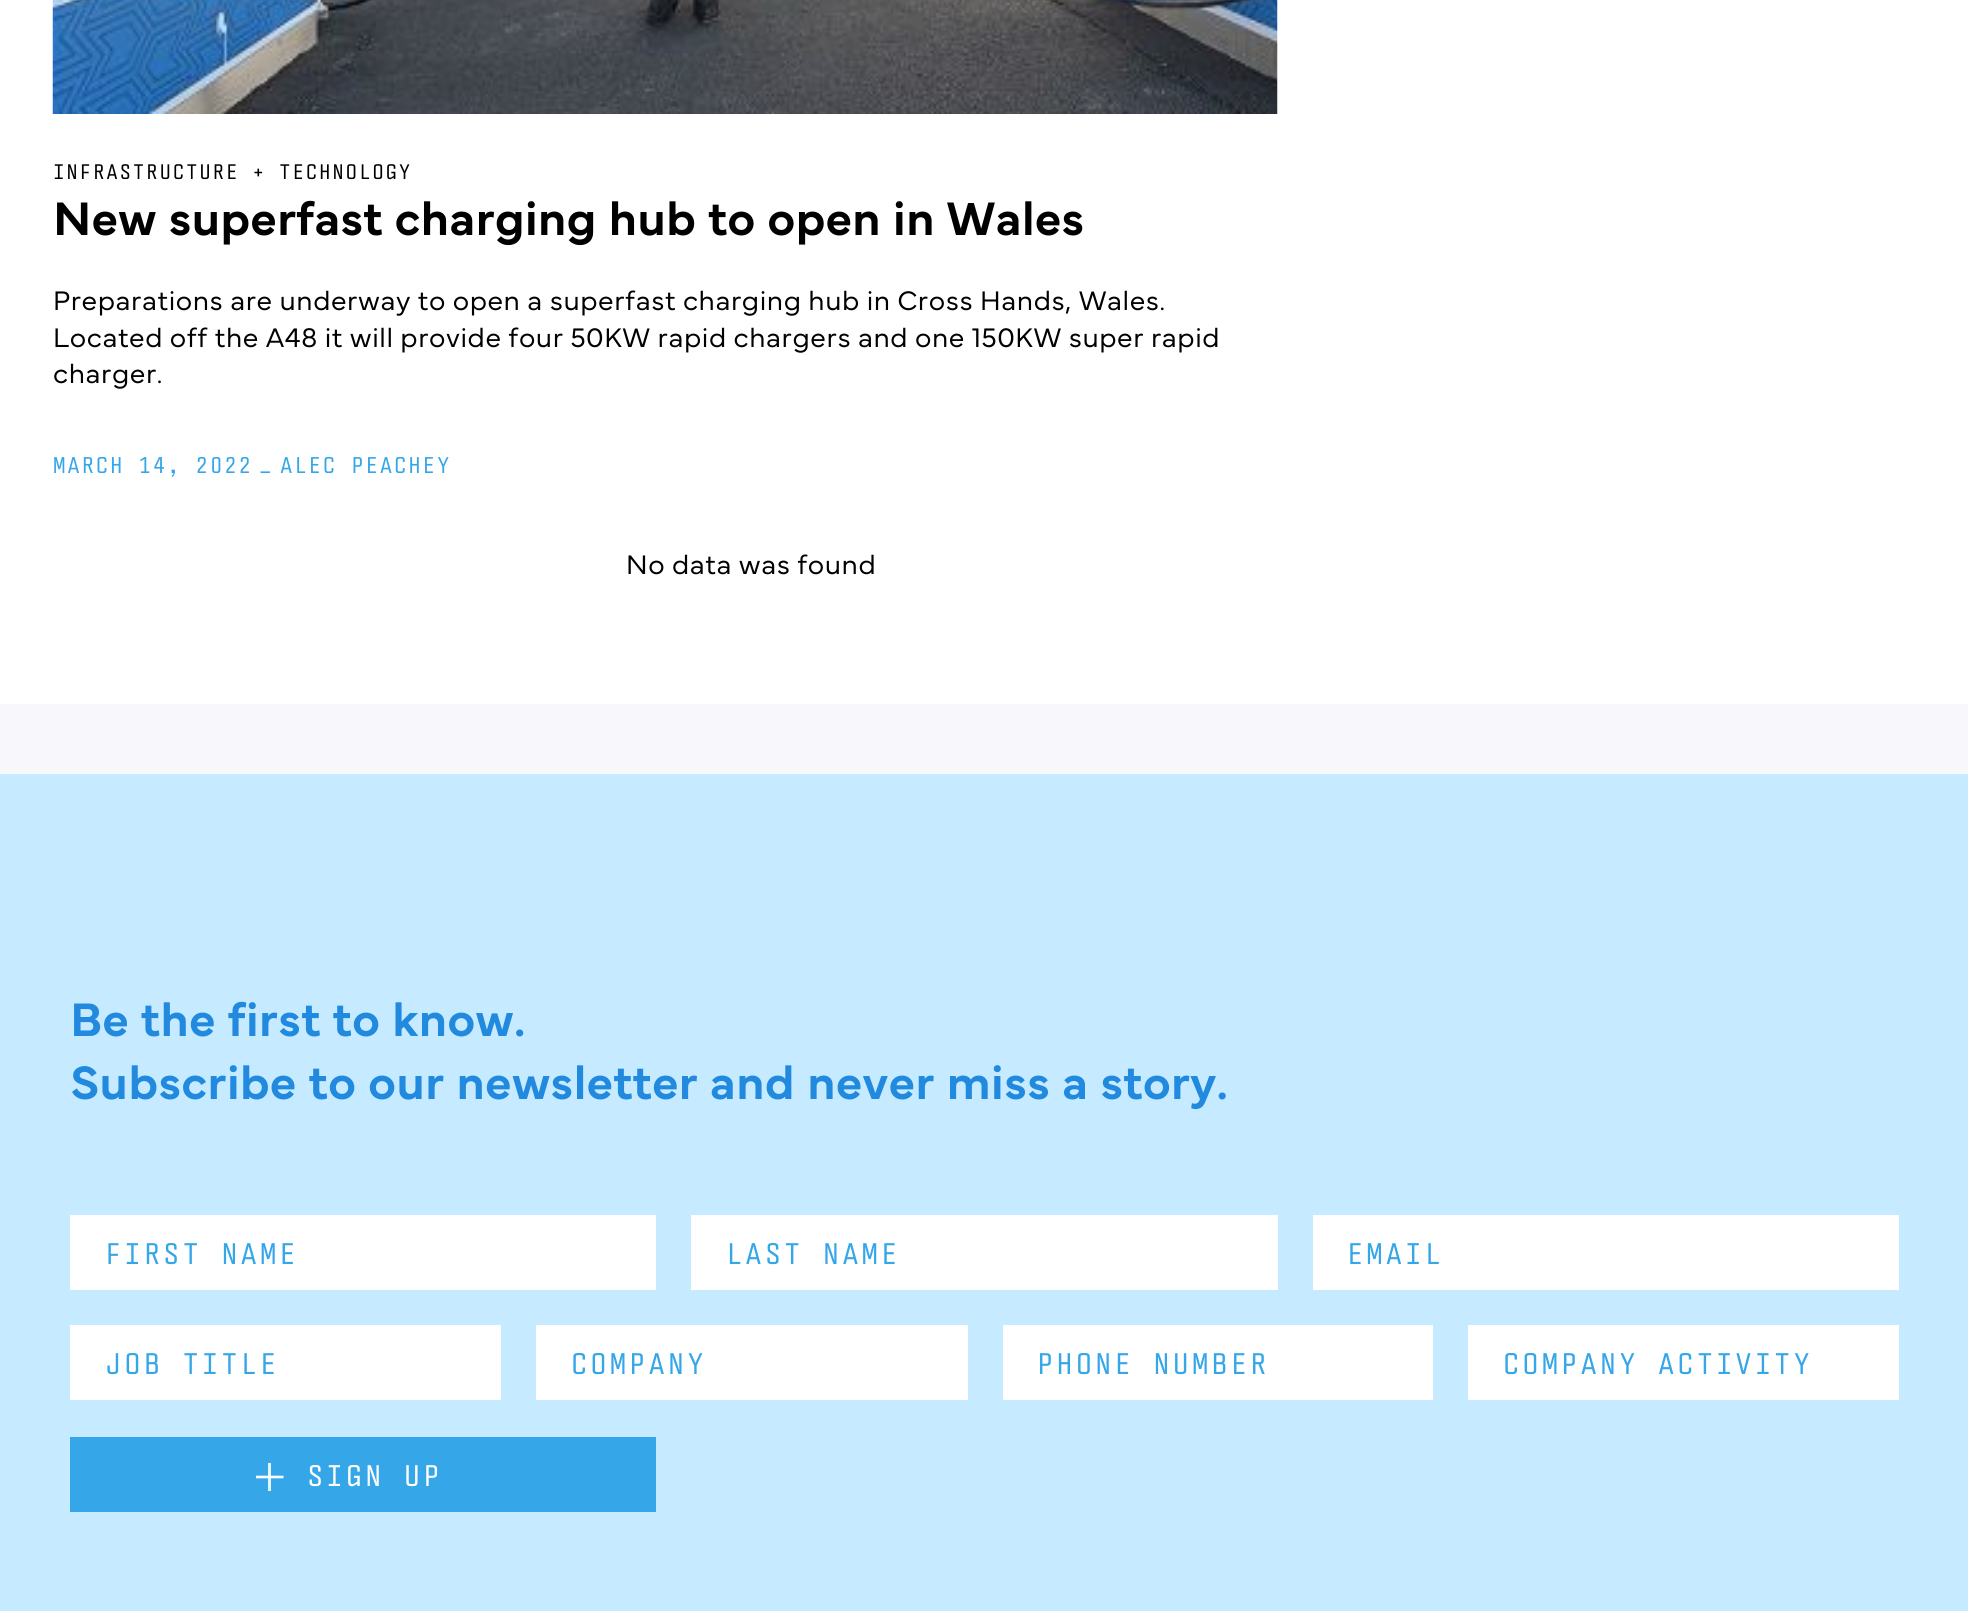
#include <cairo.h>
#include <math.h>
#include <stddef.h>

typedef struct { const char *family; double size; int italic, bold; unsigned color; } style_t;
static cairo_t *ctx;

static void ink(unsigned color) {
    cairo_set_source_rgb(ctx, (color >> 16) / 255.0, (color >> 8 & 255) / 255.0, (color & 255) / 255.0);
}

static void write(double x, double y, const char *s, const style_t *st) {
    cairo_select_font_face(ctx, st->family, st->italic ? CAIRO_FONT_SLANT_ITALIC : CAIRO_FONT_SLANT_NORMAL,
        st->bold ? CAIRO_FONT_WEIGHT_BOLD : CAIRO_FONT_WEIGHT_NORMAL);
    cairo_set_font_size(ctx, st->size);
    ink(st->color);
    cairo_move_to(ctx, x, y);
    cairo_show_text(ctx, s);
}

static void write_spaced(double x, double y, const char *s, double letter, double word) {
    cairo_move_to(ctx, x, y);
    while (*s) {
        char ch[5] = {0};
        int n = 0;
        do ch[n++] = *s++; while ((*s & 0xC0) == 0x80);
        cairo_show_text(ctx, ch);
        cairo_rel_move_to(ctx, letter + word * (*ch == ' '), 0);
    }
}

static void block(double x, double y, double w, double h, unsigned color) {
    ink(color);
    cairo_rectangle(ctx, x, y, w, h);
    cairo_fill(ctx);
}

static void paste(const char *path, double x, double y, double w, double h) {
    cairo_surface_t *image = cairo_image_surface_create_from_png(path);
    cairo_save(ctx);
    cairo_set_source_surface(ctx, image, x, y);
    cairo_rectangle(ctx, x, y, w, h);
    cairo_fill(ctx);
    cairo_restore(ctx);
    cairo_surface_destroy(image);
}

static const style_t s1 = {"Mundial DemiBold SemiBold", 49, 0, 0, 0x000000};

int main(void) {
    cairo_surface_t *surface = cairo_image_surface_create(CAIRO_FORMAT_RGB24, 1968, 1611);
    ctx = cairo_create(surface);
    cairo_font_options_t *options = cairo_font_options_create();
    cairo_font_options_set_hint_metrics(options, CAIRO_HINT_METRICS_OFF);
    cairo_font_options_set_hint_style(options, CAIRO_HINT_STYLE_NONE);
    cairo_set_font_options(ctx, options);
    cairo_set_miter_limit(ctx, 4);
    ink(0xffffff);
    cairo_paint(ctx);
    paste("pic1.png", 52, 0, 1226, 114);
    cairo_select_font_face(ctx, "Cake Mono", CAIRO_FONT_SLANT_NORMAL, CAIRO_FONT_WEIGHT_NORMAL);
    cairo_set_font_size(ctx, 21);
    ink(0x000000);
    write_spaced(53, 179, "INFRASTRUCTURE + TECHNOLOGY", 1.75, 0);
    write(53, 235, "New superfast charging hub to open in Wales", &s1);
    cairo_select_font_face(ctx, "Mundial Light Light", CAIRO_FONT_SLANT_NORMAL, CAIRO_FONT_WEIGHT_NORMAL);
    cairo_set_font_size(ctx, 28);
    write_spaced(53, 310, "Preparations are underway to open a superfast charging hub in Cross Hands, Wales.", 0.55, 0);
    write_spaced(53, 347, "Located off the A48 it will provide four 50KW rapid chargers and one 150KW super rapid", 0.55, 0);
    write_spaced(53, 383, "charger.", 0.55, 0);
    cairo_select_font_face(ctx, "Cake Mono", CAIRO_FONT_SLANT_NORMAL, CAIRO_FONT_WEIGHT_NORMAL);
    cairo_set_font_size(ctx, 22.75);
    ink(0x35a6e8);
    write_spaced(53, 473, "MARCH 14, 2022", 1.75, 0);
    write_spaced(259, 473, "_", 1.75, 0);
    write_spaced(280, 473, "ALEC PEACHEY", 1.75, 0);
    cairo_select_font_face(ctx, "Mundial Light Light", CAIRO_FONT_SLANT_NORMAL, CAIRO_FONT_WEIGHT_NORMAL);
    cairo_set_font_size(ctx, 28);
    ink(0x000000);
    write_spaced(626, 574, "No data was found", 0.55, 0);
    block(0, 704, 1968, 70, 0xf8f8fc);
    block(0, 774, 1968, 837, 0xc6eaff);
    cairo_select_font_face(ctx, "Mundial DemiBold SemiBold", CAIRO_FONT_SLANT_NORMAL, CAIRO_FONT_WEIGHT_NORMAL);
    cairo_set_font_size(ctx, 49);
    ink(0x218adf);
    write_spaced(70, 1036, "Be the first to know.", 0.05, 0);
    write_spaced(70, 1099, "Subscribe to our newsletter and never miss a story.", 0.05, 0);
    block(70, 1215, 586, 75, 0xffffff);
    cairo_select_font_face(ctx, "Cake Mono", CAIRO_FONT_SLANT_NORMAL, CAIRO_FONT_WEIGHT_NORMAL);
    cairo_set_font_size(ctx, 29.75);
    ink(0x35a6e8);
    write_spaced(105, 1264, "FIRST NAME", 3, 0);
    block(691, 1215, 587, 75, 0xffffff);
    ink(0x35a6e8);
    write_spaced(726, 1264, "LAST NAME", 3, 0);
    block(1313, 1215, 586, 75, 0xffffff);
    ink(0x35a6e8);
    write_spaced(1347, 1264, "EMAIL", 3, 0);
    block(70, 1325, 431, 75, 0xffffff);
    ink(0x35a6e8);
    write_spaced(105, 1374, "JOB TITLE", 3, 0);
    block(536, 1325, 432, 75, 0xffffff);
    ink(0x35a6e8);
    write_spaced(571, 1374, "COMPANY", 3, 0);
    block(1003, 1325, 430, 75, 0xffffff);
    ink(0x35a6e8);
    write_spaced(1037, 1374, "PHONE NUMBER", 3, 0);
    block(1468, 1325, 431, 75, 0xffffff);
    ink(0x35a6e8);
    write_spaced(1503, 1374, "COMPANY ACTIVITY", 3, 0);
    block(70, 1437, 586, 75, 0x35a6e8);
    block(268, 1463, 3, 28, 0xe4f3fc);
    cairo_save(ctx);
    cairo_rectangle(ctx, 256, 1463, 28, 28);
    cairo_clip(ctx);
    cairo_new_path(ctx);
    cairo_move_to(ctx, 283.5, 1477);
    cairo_line_to(ctx, 255.5, 1477);
    ink(0xffffff);
    cairo_set_line_width(ctx, 2.6);
    cairo_stroke(ctx);
    cairo_restore(ctx);
    ink(0xffffff);
    write_spaced(307, 1486, "SIGN UP", 3, 0);
    cairo_surface_write_to_png(surface, "screenshot.png");
    cairo_font_options_destroy(options);
    cairo_destroy(ctx);
    cairo_surface_destroy(surface);
    return 0;
}
